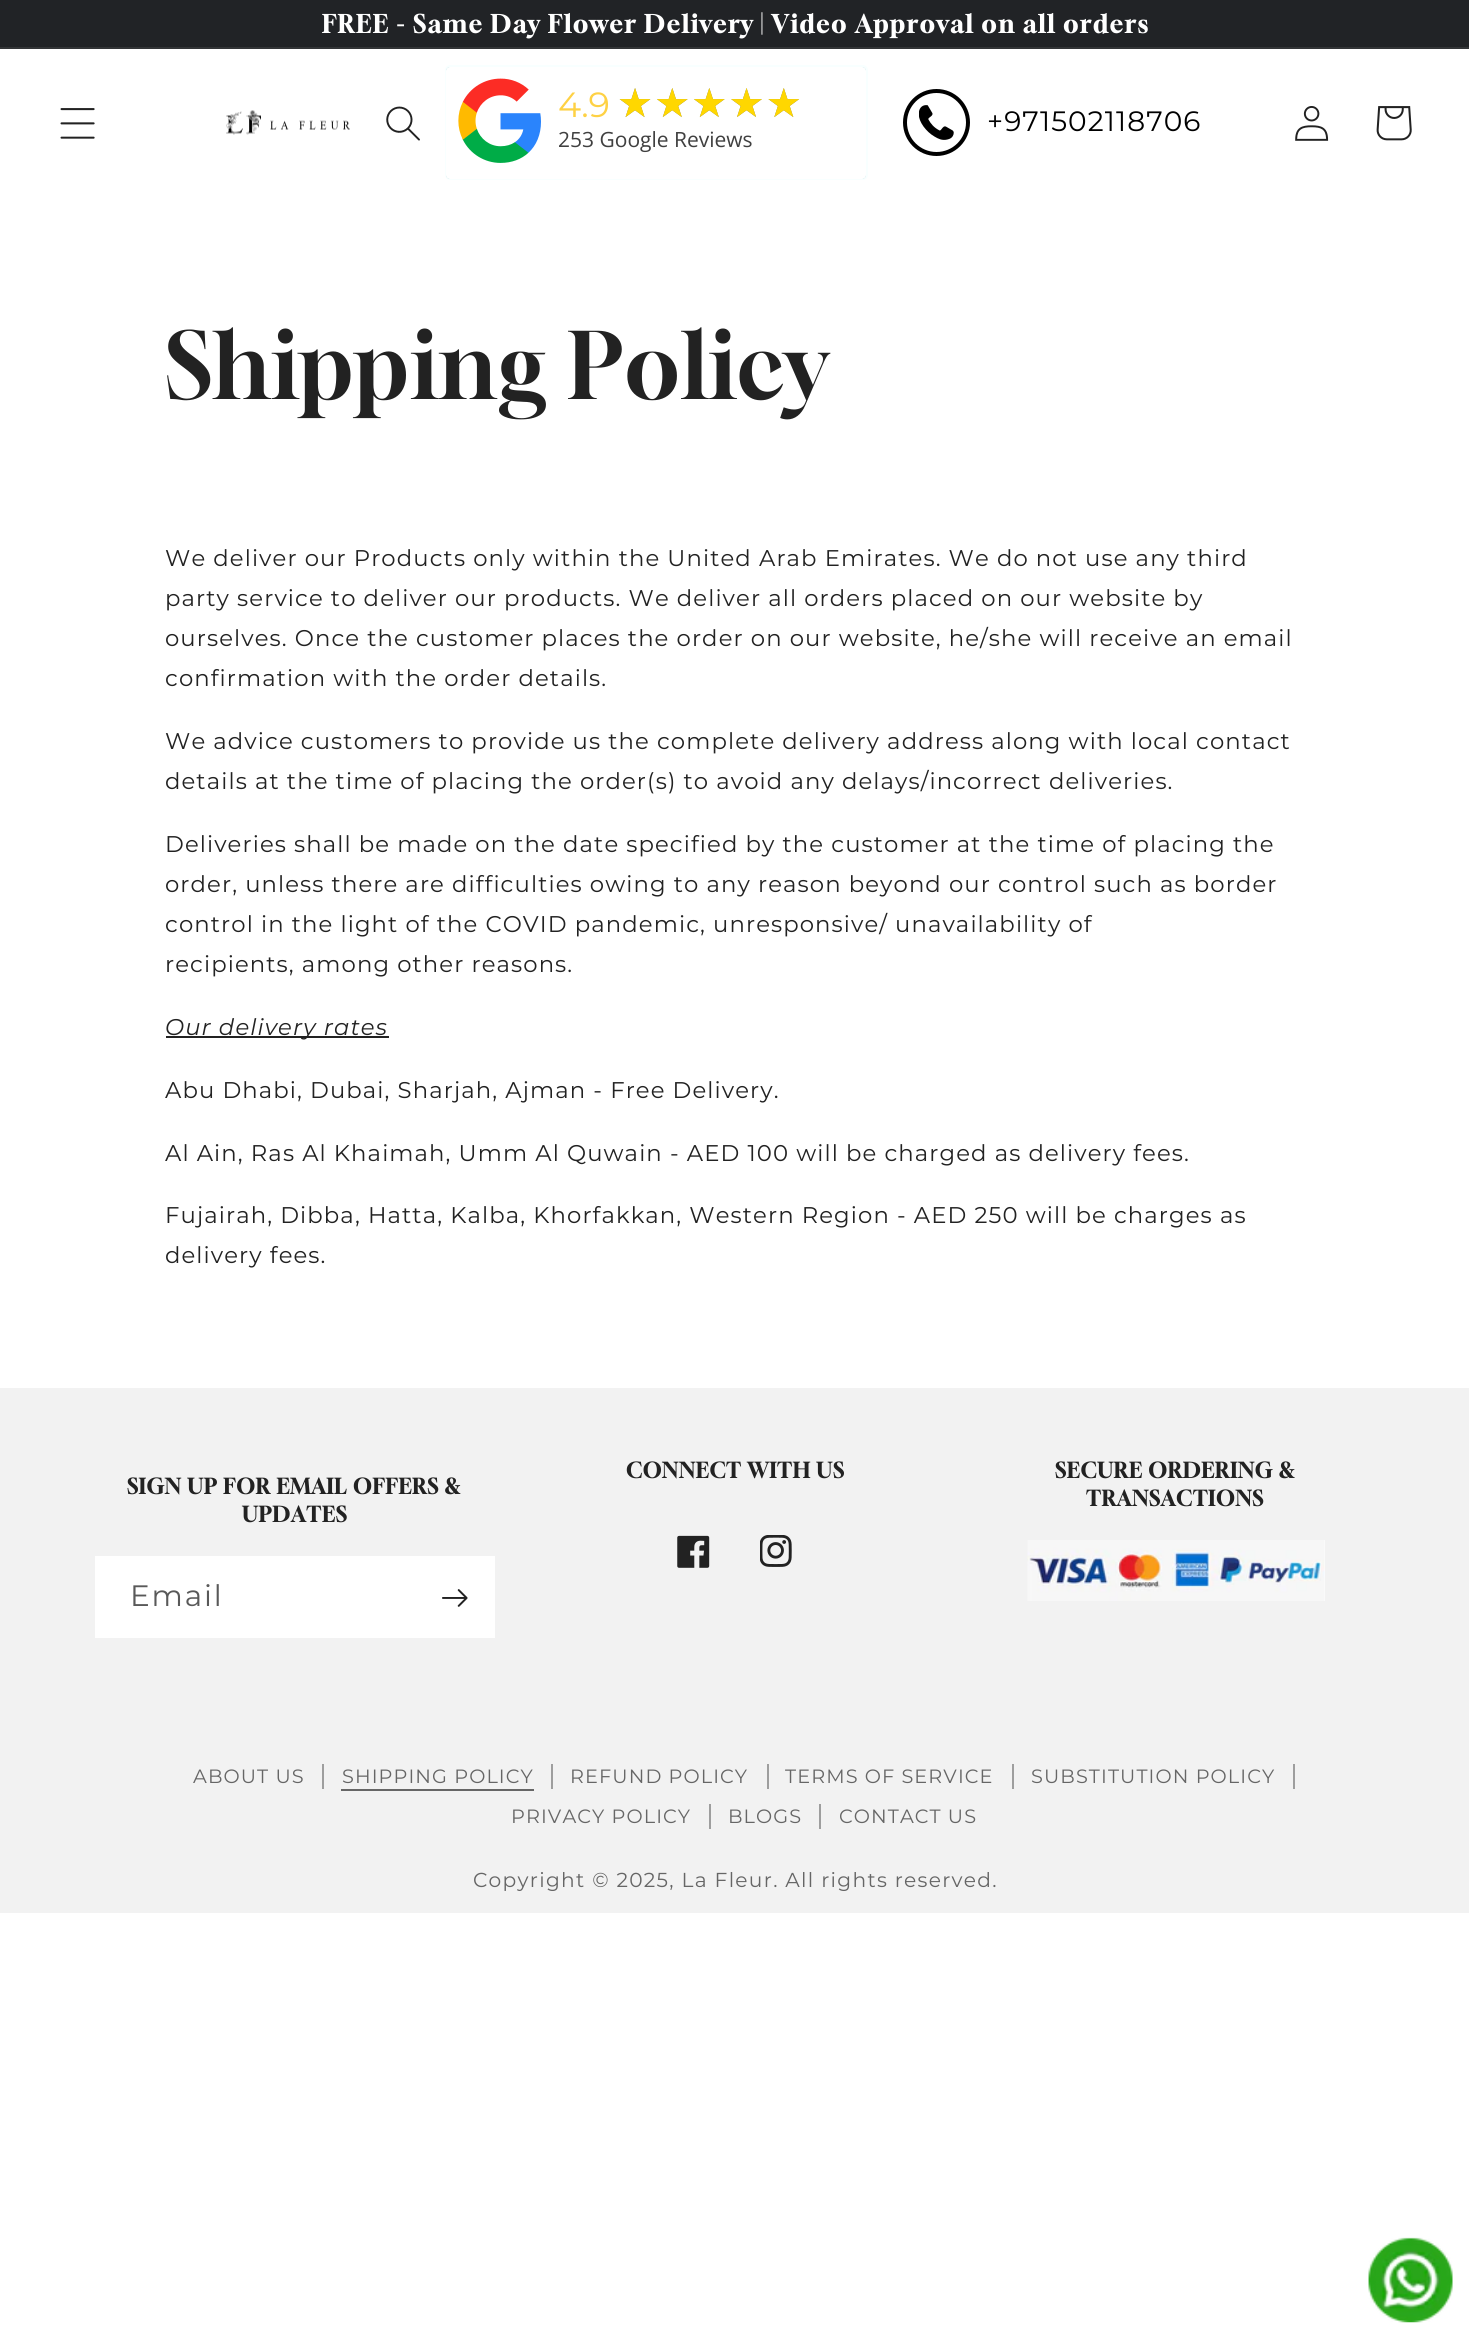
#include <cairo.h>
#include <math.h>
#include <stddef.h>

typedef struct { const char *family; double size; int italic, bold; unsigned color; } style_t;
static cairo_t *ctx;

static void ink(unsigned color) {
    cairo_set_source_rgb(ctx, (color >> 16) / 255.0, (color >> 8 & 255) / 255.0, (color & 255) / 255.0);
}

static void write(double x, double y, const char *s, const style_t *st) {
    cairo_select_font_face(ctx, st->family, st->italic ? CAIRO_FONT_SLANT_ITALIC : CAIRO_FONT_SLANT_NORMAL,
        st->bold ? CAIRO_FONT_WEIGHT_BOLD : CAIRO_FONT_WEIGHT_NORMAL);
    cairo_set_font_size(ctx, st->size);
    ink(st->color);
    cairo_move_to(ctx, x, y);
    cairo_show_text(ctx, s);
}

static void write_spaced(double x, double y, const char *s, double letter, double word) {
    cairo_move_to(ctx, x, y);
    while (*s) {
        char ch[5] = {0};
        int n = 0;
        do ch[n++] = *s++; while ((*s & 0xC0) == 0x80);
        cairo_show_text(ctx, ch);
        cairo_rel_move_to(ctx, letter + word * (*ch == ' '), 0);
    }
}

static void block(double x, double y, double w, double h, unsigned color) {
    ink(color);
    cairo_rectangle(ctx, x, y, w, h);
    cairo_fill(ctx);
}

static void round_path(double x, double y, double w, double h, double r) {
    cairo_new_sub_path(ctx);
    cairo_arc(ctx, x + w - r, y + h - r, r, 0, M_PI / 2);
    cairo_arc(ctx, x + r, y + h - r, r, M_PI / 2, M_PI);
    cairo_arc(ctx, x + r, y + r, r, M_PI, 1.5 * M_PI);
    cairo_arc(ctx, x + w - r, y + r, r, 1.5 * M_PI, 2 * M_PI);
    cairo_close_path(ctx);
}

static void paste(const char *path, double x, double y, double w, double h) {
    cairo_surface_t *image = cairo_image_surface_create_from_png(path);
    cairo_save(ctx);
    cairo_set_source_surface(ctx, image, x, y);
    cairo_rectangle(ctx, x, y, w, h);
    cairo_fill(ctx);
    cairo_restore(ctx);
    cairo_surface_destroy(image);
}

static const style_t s1 = {"Montserrat", 35, 0, 0, 0xfed144};
static const style_t s2 = {"Open Sans", 21, 0, 0, 0x404040};

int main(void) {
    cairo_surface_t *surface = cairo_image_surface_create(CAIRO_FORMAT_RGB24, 1469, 2351);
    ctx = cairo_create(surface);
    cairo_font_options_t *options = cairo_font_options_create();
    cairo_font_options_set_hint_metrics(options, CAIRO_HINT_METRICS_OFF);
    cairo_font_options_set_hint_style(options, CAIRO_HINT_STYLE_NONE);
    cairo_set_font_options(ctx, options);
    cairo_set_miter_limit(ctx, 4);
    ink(0xffffff);
    cairo_paint(ctx);
    block(0, 0, 1469, 47, 0x212326);
    block(0, 47, 1469, 2, 0x333537);
    cairo_select_font_face(ctx, "Gloock", CAIRO_FONT_SLANT_NORMAL, CAIRO_FONT_WEIGHT_BOLD);
    cairo_set_font_size(ctx, 24.5);
    ink(0xffffff);
    write_spaced(322, 33, "FREE - Same Day Flower Delivery | Video Approval on all orders", 1.85, 0);
    paste("pic1.png", 60, 108, 35, 31);
    paste("pic2.png", 226, 110, 124, 25);
    paste("pic3.png", 386, 106, 34, 35);
    ink(0xf8ffff);
    round_path(445, 65, 423, 115, 5);
    cairo_fill(ctx);
    round_path(447, 68, 418, 110, 3);
    ink(0xa9d5de);
    cairo_stroke(ctx);
    ink(0xffffff);
    round_path(446, 67, 420, 112, 4);
    cairo_fill(ctx);
    paste("pic4.png", 458, 78, 83, 85);
    write(558, 117, "4.9", &s1);
    cairo_select_font_face(ctx, "DejaVu Sans", CAIRO_FONT_SLANT_NORMAL, CAIRO_FONT_WEIGHT_NORMAL);
    cairo_set_font_size(ctx, 40.25);
    ink(0x808080);
    write_spaced(617, 117, "★★★★★", 1.1, 0);
    ink(0xffd700);
    write_spaced(617, 117, "★★★★★", 1.1, 0);
    write(558, 147, "253 Google Reviews", &s2);
    cairo_new_path(ctx);
    cairo_arc(ctx, 936.5, 122.5, 31.5, 0, 2 * M_PI);
    ink(0x000000);
    cairo_set_line_width(ctx, 4);
    cairo_stroke(ctx);
    paste("pic5.png", 919, 105, 35, 35);
    cairo_select_font_face(ctx, "Montserrat", CAIRO_FONT_SLANT_NORMAL, CAIRO_FONT_WEIGHT_NORMAL);
    cairo_set_font_size(ctx, 28);
    write_spaced(987, 131, "+971502118706", 1.1, 0);
    paste("pic6.png", 1295, 106, 34, 35);
    paste("pic7.png", 1376, 106, 36, 35);
    cairo_select_font_face(ctx, "Gloock", CAIRO_FONT_SLANT_NORMAL, CAIRO_FONT_WEIGHT_NORMAL);
    cairo_set_font_size(ctx, 91);
    ink(0x222222);
    write_spaced(165, 399, "Shipping Policy", 1.05, 0);
    cairo_select_font_face(ctx, "Montserrat", CAIRO_FONT_SLANT_NORMAL, CAIRO_FONT_WEIGHT_NORMAL);
    cairo_set_font_size(ctx, 22.75);
    write_spaced(165, 566, "We deliver our Products only within the United Arab Emirates. We do not use any third", 1.1, 0);
    write_spaced(165, 606, "party service to deliver our products. We deliver all orders placed on our website by", 1.1, 0);
    write_spaced(165, 646, "ourselves. Once the customer places the order on our website, he/she will receive an email", 1.1, 0);
    write_spaced(165, 686, "confirmation with the order details.", 1.1, 0);
    write_spaced(165, 749, "We advice customers to provide us the complete delivery address along with local contact", 1.1, 0);
    write_spaced(165, 789, "details at the time of placing the order(s) to avoid any delays/incorrect deliveries.", 1.1, 0);
    write_spaced(165, 852, "Deliveries shall be made on the date specified by the customer at the time of placing the", 1.1, 0);
    write_spaced(165, 892, "order, unless there are difficulties owing to any reason beyond our control such as border", 1.1, 0);
    write_spaced(165, 932, "control in the light of the COVID pandemic, unresponsive/ unavailability of", 1.1, 0);
    write_spaced(165, 972, "recipients, among other reasons.", 1.1, 0);
    block(166, 1036, 223, 2, 0x222222);
    cairo_select_font_face(ctx, "Montserrat", CAIRO_FONT_SLANT_ITALIC, CAIRO_FONT_WEIGHT_NORMAL);
    write_spaced(165, 1035, "Our delivery rates", 1.1, 0);
    cairo_select_font_face(ctx, "Montserrat", CAIRO_FONT_SLANT_NORMAL, CAIRO_FONT_WEIGHT_NORMAL);
    write_spaced(165, 1098, "Abu Dhabi, Dubai, Sharjah, Ajman - Free Delivery.", 1.1, 0);
    write_spaced(165, 1161, "Al Ain, Ras Al Khaimah, Umm Al Quwain - AED 100 will be charged as delivery fees.", 1.1, 0);
    write_spaced(165, 1223, "Fujairah, Dibba, Hatta, Kalba, Khorfakkan, Western Region - AED 250 will be charges as", 1.1, 0);
    write_spaced(165, 1263, "delivery fees.", 1.1, 0);
    block(0, 1388, 1469, 525, 0xf2f2f2);
    cairo_select_font_face(ctx, "Gloock", CAIRO_FONT_SLANT_NORMAL, CAIRO_FONT_WEIGHT_BOLD);
    cairo_set_font_size(ctx, 21);
    ink(0x222222);
    write_spaced(127, 1494, "SIGN UP FOR EMAIL OFFERS &", 1.05, 0);
    write_spaced(242, 1522, "UPDATES", 1.05, 0);
    block(95, 1556, 400, 82, 0xffffff);
    cairo_select_font_face(ctx, "Montserrat", CAIRO_FONT_SLANT_NORMAL, CAIRO_FONT_WEIGHT_NORMAL);
    cairo_set_font_size(ctx, 29.5);
    ink(0x595959);
    write_spaced(130, 1606, "Email", 1.85, 0);
    paste("pic8.png", 442, 1589, 26, 18);
    cairo_select_font_face(ctx, "Gloock", CAIRO_FONT_SLANT_NORMAL, CAIRO_FONT_WEIGHT_BOLD);
    cairo_set_font_size(ctx, 21);
    ink(0x222222);
    write_spaced(626, 1478, "CONNECT WITH US", 1.05, 0);
    paste("pic9.png", 677, 1535, 33, 33);
    paste("pic10.png", 760, 1535, 32, 32);
    write_spaced(1055, 1478, "SECURE ORDERING &", 1.05, 0);
    write_spaced(1086, 1506, "TRANSACTIONS", 1.05, 0);
    block(1324, 1540, 1, 61, 0xffffff);
    paste("pic11.png", 1027, 1540, 298, 61);
    block(322, 1764, 2, 25, 0x9e9e9e);
    cairo_select_font_face(ctx, "Montserrat", CAIRO_FONT_SLANT_NORMAL, CAIRO_FONT_WEIGHT_NORMAL);
    cairo_set_font_size(ctx, 19.25);
    ink(0x666666);
    write_spaced(193, 1783, "ABOUT US", 1.1, 0);
    block(551, 1764, 2, 25, 0x9e9e9e);
    ink(0x666666);
    write_spaced(342, 1783, "SHIPPING POLICY", 1.1, 0);
    block(341, 1789, 193, 2, 0x666666);
    block(767, 1764, 2, 25, 0x9e9e9e);
    ink(0x666666);
    write_spaced(570, 1783, "REFUND POLICY", 1.1, 0);
    block(1012, 1764, 2, 25, 0x9e9e9e);
    ink(0x666666);
    write_spaced(785, 1783, "TERMS OF SERVICE", 1.1, 0);
    block(1293, 1764, 2, 25, 0x9e9e9e);
    ink(0x666666);
    write_spaced(1031, 1783, "SUBSTITUTION POLICY", 1.1, 0);
    block(709, 1804, 2, 25, 0x9e9e9e);
    ink(0x666666);
    write_spaced(511, 1823, "PRIVACY POLICY", 1.1, 0);
    block(819, 1804, 2, 25, 0x9e9e9e);
    ink(0x666666);
    write_spaced(728, 1823, "BLOGS", 1.1, 0);
    write_spaced(839, 1823, "CONTACT US", 1.1, 0);
    cairo_set_font_size(ctx, 20.2);
    write_spaced(473, 1887, "Copyright © 2025, La Fleur. All rights reserved.", 1.3, 0);
    paste("pic12.png", 1368, 2237, 85, 86);
    cairo_surface_write_to_png(surface, "screenshot.png");
    cairo_font_options_destroy(options);
    cairo_destroy(ctx);
    cairo_surface_destroy(surface);
    return 0;
}
